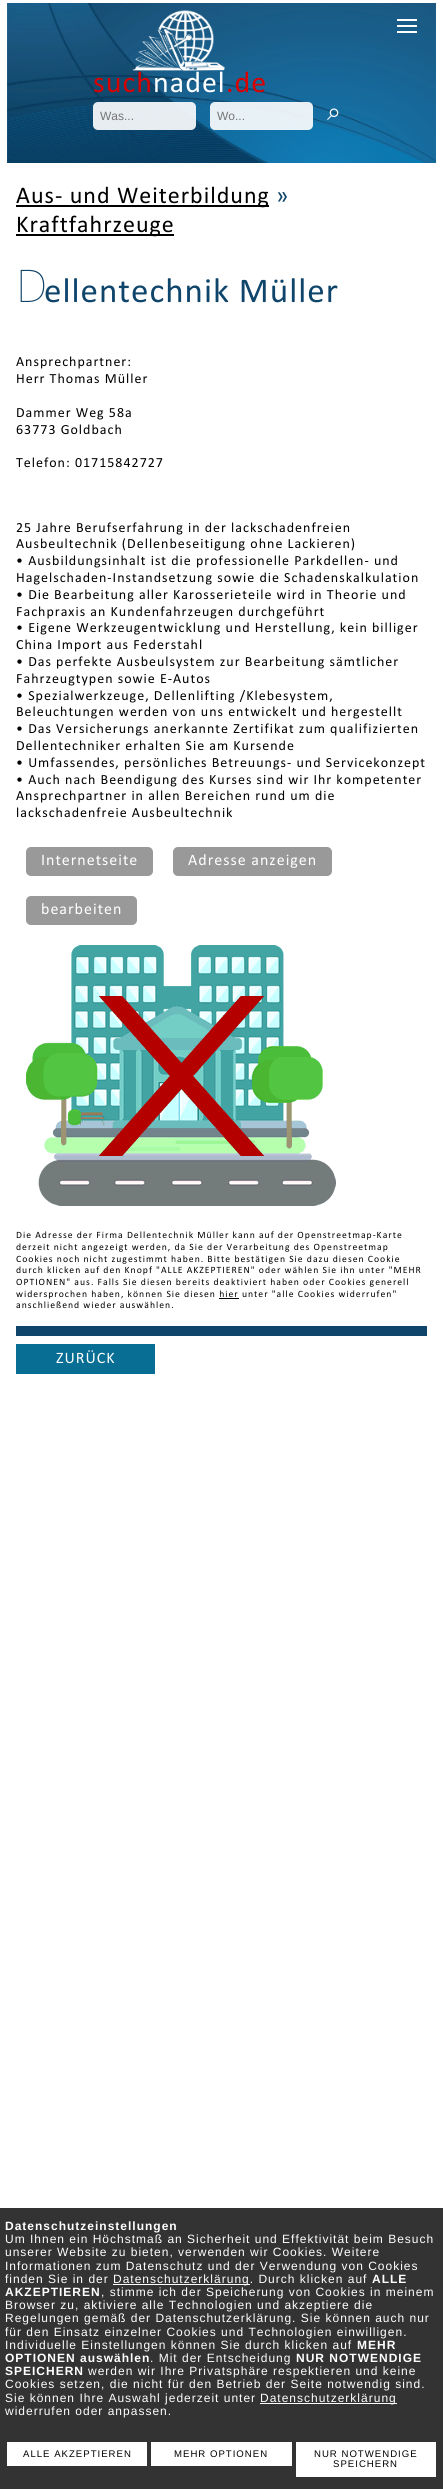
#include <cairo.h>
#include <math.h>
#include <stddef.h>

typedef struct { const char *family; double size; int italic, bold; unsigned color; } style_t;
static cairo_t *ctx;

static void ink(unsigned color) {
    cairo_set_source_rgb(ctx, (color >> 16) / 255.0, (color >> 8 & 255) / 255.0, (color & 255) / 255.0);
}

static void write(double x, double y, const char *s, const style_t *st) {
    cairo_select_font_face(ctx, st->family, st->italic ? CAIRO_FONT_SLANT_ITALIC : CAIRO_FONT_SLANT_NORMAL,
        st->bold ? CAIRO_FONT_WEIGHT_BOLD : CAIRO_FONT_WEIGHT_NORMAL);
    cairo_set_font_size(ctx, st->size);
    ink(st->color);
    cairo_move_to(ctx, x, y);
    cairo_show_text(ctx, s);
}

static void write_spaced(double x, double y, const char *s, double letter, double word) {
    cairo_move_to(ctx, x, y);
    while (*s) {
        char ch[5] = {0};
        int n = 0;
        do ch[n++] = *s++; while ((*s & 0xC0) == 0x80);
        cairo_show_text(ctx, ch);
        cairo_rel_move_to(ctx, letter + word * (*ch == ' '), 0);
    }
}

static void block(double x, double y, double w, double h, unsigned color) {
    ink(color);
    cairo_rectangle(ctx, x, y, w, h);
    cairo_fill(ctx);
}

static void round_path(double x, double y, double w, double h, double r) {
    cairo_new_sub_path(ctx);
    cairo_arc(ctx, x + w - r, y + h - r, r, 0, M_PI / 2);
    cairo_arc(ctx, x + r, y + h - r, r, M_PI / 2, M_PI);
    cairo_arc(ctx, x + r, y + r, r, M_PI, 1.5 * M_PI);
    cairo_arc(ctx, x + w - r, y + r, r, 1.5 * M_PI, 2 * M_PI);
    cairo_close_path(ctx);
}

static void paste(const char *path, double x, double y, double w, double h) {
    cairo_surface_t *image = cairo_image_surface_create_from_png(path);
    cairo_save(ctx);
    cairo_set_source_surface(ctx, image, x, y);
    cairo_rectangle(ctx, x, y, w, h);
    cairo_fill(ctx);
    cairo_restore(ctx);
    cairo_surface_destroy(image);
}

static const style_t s1 = {"Liberation Sans", 12, 0, 0, 0x757575};
static const style_t s2 = {"FreeSerif", 25, 0, 0, 0xffffff};

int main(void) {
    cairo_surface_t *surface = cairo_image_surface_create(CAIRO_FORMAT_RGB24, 443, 2489);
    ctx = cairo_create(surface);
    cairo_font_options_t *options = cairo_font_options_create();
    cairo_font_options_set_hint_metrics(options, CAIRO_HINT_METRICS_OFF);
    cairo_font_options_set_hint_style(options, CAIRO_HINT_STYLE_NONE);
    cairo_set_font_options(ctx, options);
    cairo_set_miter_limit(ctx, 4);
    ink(0xffffff);
    cairo_paint(ctx);
    paste("pic1.png", 7, 3, 429, 160);
    block(397, 19, 20, 2, 0xffffff);
    block(397, 25, 20, 2, 0xffffff);
    block(397, 31, 20, 2, 0xffffff);
    paste("pic2.png", 132, 10, 93, 61);
    cairo_select_font_face(ctx, "Calibri", CAIRO_FONT_SLANT_NORMAL, CAIRO_FONT_WEIGHT_NORMAL);
    cairo_set_font_size(ctx, 30);
    ink(0xd90000);
    write_spaced(93, 92, "such", 1, 0);
    ink(0xffffff);
    write_spaced(153, 92, "nadel", 1, 0);
    ink(0xd90000);
    write_spaced(226, 92, ".de", 1, 0);
    cairo_set_source_rgba(ctx, 1, 1, 1, 0.9);
    round_path(93, 102, 103, 28, 5);
    cairo_fill(ctx);
    write(100, 120, "Was...", &s1);
    cairo_set_source_rgba(ctx, 1, 1, 1, 0.9);
    round_path(210, 102, 103, 28, 5);
    cairo_fill(ctx);
    write(217, 120, "Wo...", &s1);
    write(327, 120, "⌕", &s2);
    block(16, 205, 253, 2, 0x000000);
    cairo_select_font_face(ctx, "Calibri", CAIRO_FONT_SLANT_NORMAL, CAIRO_FONT_WEIGHT_NORMAL);
    cairo_set_font_size(ctx, 24);
    write_spaced(16, 203, "Aus- und Weiterbildung", 1, 0);
    ink(0x0f446b);
    write_spaced(276, 203, "»", 1, 0);
    block(16, 234, 158, 2, 0x000000);
    write_spaced(16, 232, "Kraftfahrzeuge", 1, 0);
    cairo_select_font_face(ctx, "Noto Sans Thin", CAIRO_FONT_SLANT_NORMAL, CAIRO_FONT_WEIGHT_NORMAL);
    cairo_set_font_size(ctx, 45);
    ink(0x0f446b);
    write_spaced(16, 302, "D", 1, 0);
    cairo_select_font_face(ctx, "Calibri", CAIRO_FONT_SLANT_NORMAL, CAIRO_FONT_WEIGHT_NORMAL);
    cairo_set_font_size(ctx, 35);
    write_spaced(44, 302, "ellentechnik Müller", 1, 0);
    cairo_set_font_size(ctx, 14);
    ink(0x000000);
    write_spaced(16, 366, "Ansprechpartner:", 1, 0);
    write_spaced(16, 383, "Herr Thomas Müller", 1, 0);
    write_spaced(16, 417, "Dammer Weg 58a", 1, 0);
    write_spaced(16, 434, "63773 Goldbach", 1, 0);
    write_spaced(16, 467, "Telefon: 01715842727", 1, 0);
    write_spaced(16, 532, "25 Jahre Berufserfahrung in der lackschadenfreien", 1, 0);
    write_spaced(16, 548, "Ausbeultechnik (Dellenbeseitigung ohne Lackieren)", 1, 0);
    write_spaced(16, 565, "• Ausbildungsinhalt ist die professionelle Parkdellen- und", 1, 0);
    write_spaced(16, 582, "Hagelschaden-Instandsetzung sowie die Schadenskalkulation", 1, 0);
    write_spaced(16, 599, "• Die Bearbeitung aller Karosserieteile wird in Theorie und", 1, 0);
    write_spaced(16, 616, "Fachpraxis an Kundenfahrzeugen durchgeführt", 1, 0);
    write_spaced(16, 632, "• Eigene Werkzeugentwicklung und Herstellung, kein billiger", 1, 0);
    write_spaced(16, 649, "China Import aus Federstahl", 1, 0);
    write_spaced(16, 666, "• Das perfekte Ausbeulsystem zur Bearbeitung sämtlicher", 1, 0);
    write_spaced(16, 683, "Fahrzeugtypen sowie E-Autos", 1, 0);
    write_spaced(16, 700, "• Spezialwerkzeuge, Dellenlifting /Klebesystem,", 1, 0);
    write_spaced(16, 716, "Beleuchtungen werden von uns entwickelt und hergestellt", 1, 0);
    write_spaced(16, 733, "• Das Versicherungs anerkannte Zertifikat zum qualifizierten", 1, 0);
    write_spaced(16, 750, "Dellentechniker erhalten Sie am Kursende", 1, 0);
    write_spaced(16, 767, "• Umfassendes, persönliches Betreuungs- und Servicekonzept", 1, 0);
    write_spaced(16, 784, "• Auch nach Beendigung des Kurses sind wir Ihr kompetenter", 1, 0);
    write_spaced(16, 800, "Ansprechpartner in allen Bereichen rund um die", 1, 0);
    write_spaced(16, 817, "lackschadenfreie Ausbeultechnik", 1, 0);
    ink(0x999999);
    round_path(26, 847, 127, 29, 5);
    cairo_fill(ctx);
    cairo_set_font_size(ctx, 16);
    ink(0xffffff);
    write_spaced(41, 865, "Internetseite", 1, 0);
    ink(0x999999);
    round_path(173, 847, 159, 29, 5);
    cairo_fill(ctx);
    ink(0xffffff);
    write_spaced(188, 865, "Adresse anzeigen", 1, 0);
    ink(0x999999);
    round_path(26, 896, 111, 29, 5);
    cairo_fill(ctx);
    ink(0xffffff);
    write_spaced(41, 914, "bearbeiten", 1, 0);
    paste("pic3.png", 26, 945, 310, 261);
    cairo_set_font_size(ctx, 9.7);
    ink(0x000000);
    write_spaced(16, 1238, "Die Adresse der Firma Dellentechnik Müller kann auf der Openstreetmap-Karte", 1, 0);
    write_spaced(16, 1250, "derzeit nicht angezeigt werden, da Sie der Verarbeitung des Openstreetmap", 1, 0);
    write_spaced(16, 1262, "Cookies noch nicht zugestimmt haben. Bitte bestätigen Sie dazu diesen Cookie", 1, 0);
    write_spaced(16, 1273, "durch klicken auf den Knopf \"ALLE AKZEPTIEREN\" oder wählen Sie ihn unter \"MEHR", 1, 0);
    write_spaced(16, 1285, "OPTIONEN\" aus. Falls Sie diesen bereits deaktiviert haben oder Cookies generell", 1, 0);
    write_spaced(16, 1297, "widersprochen haben, können Sie diesen hier unter \"alle Cookies widerrufen\"", 1, 0);
    block(219, 1298, 20, 1, 0x000000);
    write_spaced(16, 1308, "anschließend wieder auswählen.", 1, 0);
    block(16, 1326, 411, 10, 0x0f446b);
    block(16, 1344, 139, 30, 0x096e93);
    cairo_set_font_size(ctx, 16);
    ink(0xffffff);
    write_spaced(56, 1363, "ZURÜCK", 1, 0);
    block(0, 2208, 443, 281, 0x333333);
    cairo_select_font_face(ctx, "Liberation Sans", CAIRO_FONT_SLANT_NORMAL, CAIRO_FONT_WEIGHT_BOLD);
    cairo_set_font_size(ctx, 12);
    ink(0xffffff);
    write_spaced(5, 2230, "Datenschutzeinstellungen", 1, 0);
    cairo_select_font_face(ctx, "Liberation Sans", CAIRO_FONT_SLANT_NORMAL, CAIRO_FONT_WEIGHT_NORMAL);
    write_spaced(5, 2243, "Um Ihnen ein Höchstmaß an Sicherheit und Effektivität beim Besuch", 1, 0);
    write_spaced(5, 2256, "unserer Website zu bieten, verwenden wir Cookies. Weitere", 1, 0);
    write_spaced(5, 2270, "Informationen zum Datenschutz und der Verwendung von Cookies", 1, 0);
    write_spaced(5, 2283, "finden Sie in der", 1, 0);
    block(113, 2284, 137, 1, 0xffffff);
    write_spaced(113, 2283, "Datenschutzerklärung. Durch klicken auf", 1, 0);
    cairo_select_font_face(ctx, "Liberation Sans", CAIRO_FONT_SLANT_NORMAL, CAIRO_FONT_WEIGHT_BOLD);
    write_spaced(372, 2283, "ALLE", 1, 0);
    write_spaced(5, 2296, "AKZEPTIEREN", 1, 0);
    cairo_select_font_face(ctx, "Liberation Sans", CAIRO_FONT_SLANT_NORMAL, CAIRO_FONT_WEIGHT_NORMAL);
    write_spaced(101, 2296, ", stimme ich der Speicherung von Cookies in meinem", 1, 0);
    write_spaced(5, 2309, "Browser zu, aktiviere alle Technologien und akzeptiere die", 1, 0);
    write_spaced(5, 2322, "Regelungen gemäß der Datenschutzerklärung. Sie können auch nur", 1, 0);
    write_spaced(5, 2336, "für den Einsatz einzelner Cookies und Technologien einwilligen.", 1, 0);
    write_spaced(5, 2349, "Individuelle Einstellungen können Sie durch klicken auf", 1, 0);
    cairo_select_font_face(ctx, "Liberation Sans", CAIRO_FONT_SLANT_NORMAL, CAIRO_FONT_WEIGHT_BOLD);
    write_spaced(357, 2349, "MEHR", 1, 0);
    write_spaced(5, 2362, "OPTIONEN auswählen", 1, 0);
    cairo_select_font_face(ctx, "Liberation Sans", CAIRO_FONT_SLANT_NORMAL, CAIRO_FONT_WEIGHT_NORMAL);
    write_spaced(150, 2362, ". Mit der Entscheidung", 1, 0);
    cairo_select_font_face(ctx, "Liberation Sans", CAIRO_FONT_SLANT_NORMAL, CAIRO_FONT_WEIGHT_BOLD);
    write_spaced(296, 2362, "NUR NOTWENDIGE", 1, 0);
    write_spaced(5, 2375, "SPEICHERN", 1, 0);
    cairo_select_font_face(ctx, "Liberation Sans", CAIRO_FONT_SLANT_NORMAL, CAIRO_FONT_WEIGHT_NORMAL);
    write_spaced(88, 2375, "werden wir Ihre Privatsphäre respektieren und keine", 1, 0);
    write_spaced(5, 2388, "Cookies setzen, die nicht für den Betrieb der Seite notwendig sind.", 1, 0);
    write_spaced(5, 2402, "Sie können Ihre Auswahl jederzeit unter", 1, 0);
    block(260, 2403, 137, 1, 0xffffff);
    write_spaced(260, 2402, "Datenschutzerklärung", 1, 0);
    write_spaced(5, 2415, "widerrufen oder anpassen.", 1, 0);
    block(7, 2442, 140, 24, 0xffffff);
    cairo_set_font_size(ctx, 9.6);
    ink(0x000000);
    write_spaced(23, 2457, "ALLE AKZEPTIEREN", 1, 0);
    block(151, 2442, 141, 24, 0xffffff);
    ink(0x000000);
    write_spaced(174, 2457, "MEHR OPTIONEN", 1, 0);
    block(296, 2442, 140, 35, 0xffffff);
    ink(0x000000);
    write_spaced(314, 2457, "NUR NOTWENDIGE", 1, 0);
    write_spaced(333, 2467, "SPEICHERN", 1, 0);
    cairo_surface_write_to_png(surface, "screenshot.png");
    cairo_font_options_destroy(options);
    cairo_destroy(ctx);
    cairo_surface_destroy(surface);
    return 0;
}
